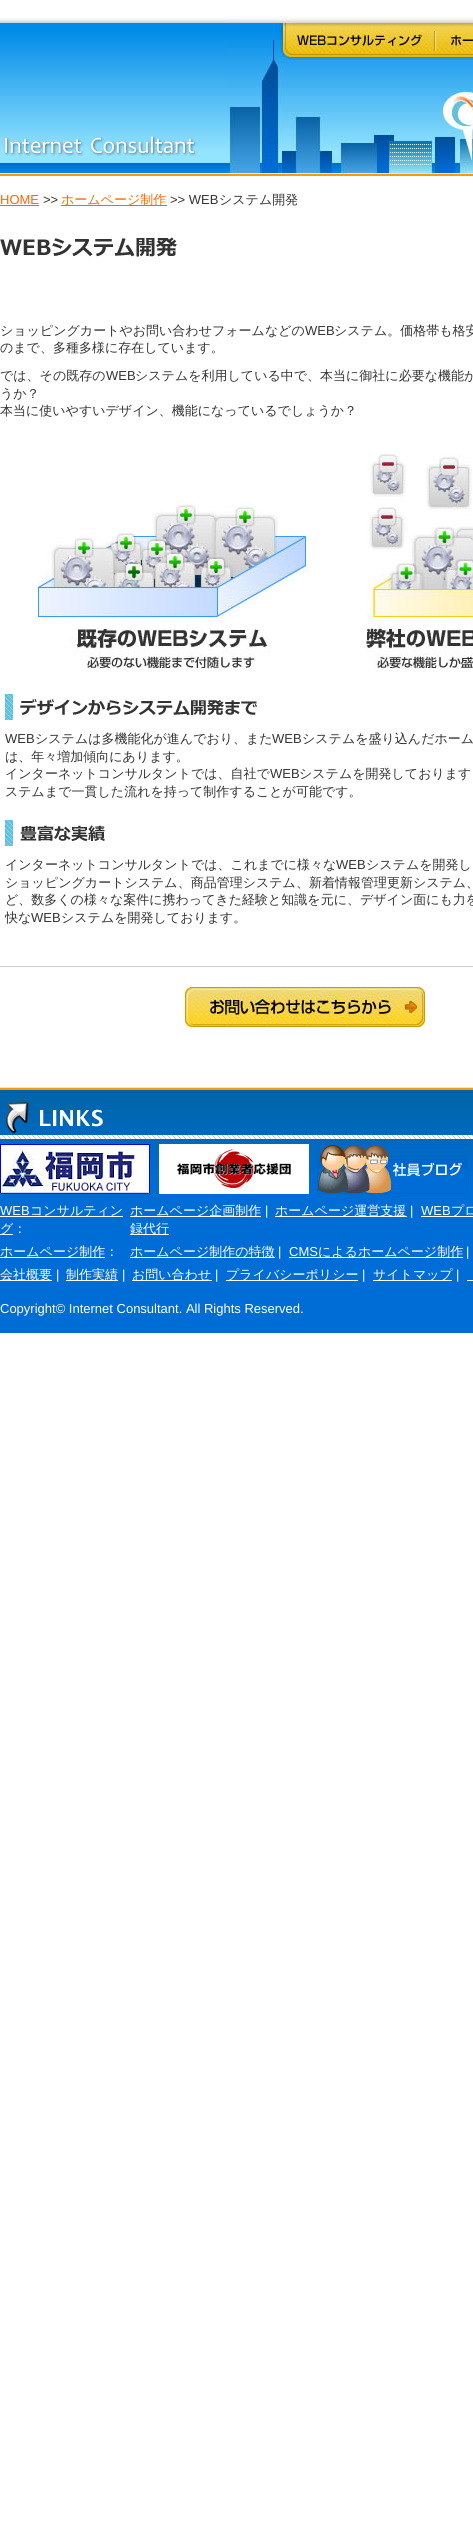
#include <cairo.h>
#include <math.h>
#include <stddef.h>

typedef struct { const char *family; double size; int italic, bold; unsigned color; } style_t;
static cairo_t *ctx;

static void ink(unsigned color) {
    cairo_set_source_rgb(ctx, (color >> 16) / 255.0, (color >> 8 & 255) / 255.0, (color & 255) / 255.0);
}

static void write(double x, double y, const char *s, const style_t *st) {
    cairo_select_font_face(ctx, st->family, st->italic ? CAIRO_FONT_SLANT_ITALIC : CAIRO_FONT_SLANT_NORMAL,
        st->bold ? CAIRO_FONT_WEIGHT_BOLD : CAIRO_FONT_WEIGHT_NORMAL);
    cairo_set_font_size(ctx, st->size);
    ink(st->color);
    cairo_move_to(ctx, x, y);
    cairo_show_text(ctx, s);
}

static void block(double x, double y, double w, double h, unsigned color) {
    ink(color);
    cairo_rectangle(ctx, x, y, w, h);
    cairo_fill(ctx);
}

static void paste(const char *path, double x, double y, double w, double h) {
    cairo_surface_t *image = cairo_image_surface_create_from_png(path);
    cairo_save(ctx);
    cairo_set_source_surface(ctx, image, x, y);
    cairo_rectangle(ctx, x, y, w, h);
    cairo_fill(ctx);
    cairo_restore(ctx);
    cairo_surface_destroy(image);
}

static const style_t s1 = {"Liberation Sans", 13, 0, 0, 0xff6600};
static const style_t s2 = {"Liberation Sans", 13, 0, 0, 0x333333};
static const style_t s3 = {"WenQuanYi Zen Hei Medium", 13, 0, 0, 0xff6600};
static const style_t s4 = {"WenQuanYi Zen Hei Medium", 13, 0, 0, 0x333333};
static const style_t s5 = {"Liberation Sans", 13, 0, 0, 0xffffff};
static const style_t s6 = {"WenQuanYi Zen Hei Medium", 13, 0, 0, 0xffffff};

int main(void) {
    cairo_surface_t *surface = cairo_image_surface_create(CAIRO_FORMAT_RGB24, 473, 2530);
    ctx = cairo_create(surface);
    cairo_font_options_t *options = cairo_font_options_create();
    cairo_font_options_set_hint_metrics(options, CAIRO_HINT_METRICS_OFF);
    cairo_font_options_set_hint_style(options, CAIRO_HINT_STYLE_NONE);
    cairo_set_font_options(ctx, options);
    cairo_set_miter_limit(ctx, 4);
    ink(0xffffff);
    cairo_paint(ctx);
    paste("pic1.png", 0, 17, 227, 159);
    paste("pic2.png", 227, 16, 246, 160);
    paste("pic3.png", 285, 23, 150, 30);
    paste("pic4.png", 435, 23, 38, 30);
    paste("pic5.png", 4, 136, 193, 20);
    write(0, 204, "HOME", &s1);
    block(0, 205, 39, 1, 0xff6600);
    write(43, 204, ">>", &s2);
    block(61, 205, 106, 1, 0xff6600);
    write(61, 204, "ホームページ制作", &s3);
    write(170, 204, ">> WEB", &s2);
    write(219, 204, "システム開発", &s4);
    paste("pic6.png", 0, 237, 177, 20);
    write(0, 335, "ショッピングカートやお問い合わせフォームなどの", &s4);
    write(305, 335, "WEB", &s2);
    write(334, 335, "システム。価格帯も格安", &s4);
    write(0, 352, "のまで、多種多様に存在しています。", &s4);
    write(0, 380, "では、その既存の", &s4);
    write(106, 380, "WEB", &s2);
    write(135, 380, "システムを利用している中で、本当に御社に必要な機能が", &s4);
    write(0, 398, "うか？", &s4);
    write(0, 415, "本当に使いやすいデザイン、機能になっているでしょうか？", &s4);
    paste("pic7.png", 38, 453, 435, 216);
    paste("pic8.png", 5, 694, 8, 26);
    paste("pic9.png", 20, 699, 237, 17);
    write(5, 743, "WEB", &s2);
    write(35, 743, "システムは多機能化が進んでおり、また", &s4);
    write(272, 743, "WEB", &s2);
    write(302, 743, "システムを盛り込んだホーム", &s4);
    write(5, 761, "は、年々増加傾向にあります。", &s4);
    write(5, 778, "インターネットコンサルタントでは、自社で", &s4);
    write(270, 778, "WEB", &s2);
    write(299, 778, "システムを開発しております", &s4);
    write(5, 796, "ステムまで一貫した流れを持って制作することが可能です。", &s4);
    paste("pic8.png", 5, 820, 8, 26);
    paste("pic10.png", 20, 825, 85, 16);
    write(5, 869, "インターネットコンサルタントでは、これまでに様々な", &s4);
    write(336, 869, "WEB", &s2);
    write(366, 869, "システムを開発し", &s4);
    write(5, 887, "ショッピングカートシステム、商品管理システム、新着情報管理更新システム、", &s4);
    write(5, 904, "ど、数多くの様々な案件に携わってきた経験と知識を元に、デザイン面にも力を", &s4);
    write(5, 922, "快な", &s4);
    write(31, 922, "WEB", &s2);
    write(61, 922, "システムを開発しております。", &s4);
    block(0, 966, 473, 1, 0xcccccc);
    paste("pic11.png", 185, 987, 240, 40);
    block(0, 1183, 473, 150, 0x006dd7);
    paste("pic12.png", 0, 1087, 473, 96);
    paste("pic13.png", 0, 1135, 473, 4);
    paste("pic14.png", 0, 1102, 103, 32);
    paste("pic15.png", 0, 1144, 150, 50);
    paste("pic16.png", 159, 1144, 150, 50);
    paste("pic17.png", 317, 1144, 150, 50);
    write(0, 1215, "WEB", &s5);
    block(0, 1216, 123, 1, 0xffffff);
    write(30, 1215, "コンサルティン", &s6);
    block(0, 1234, 13, 1, 0xffffff);
    write(0, 1233, "グ：", &s6);
    block(130, 1216, 131, 1, 0xffffff);
    write(130, 1215, "ホームページ企画制作", &s6);
    write(265, 1215, "|", &s5);
    block(275, 1216, 132, 1, 0xffffff);
    write(275, 1215, "ホームページ運営支援", &s6);
    write(410, 1215, "|", &s5);
    write(421, 1215, "WEB", &s5);
    block(421, 1216, 52, 1, 0xffffff);
    write(451, 1215, "プロ", &s6);
    block(130, 1234, 39, 1, 0xffffff);
    write(130, 1233, "録代行", &s6);
    block(0, 1257, 105, 1, 0xffffff);
    write(0, 1256, "ホームページ制作：", &s6);
    block(130, 1257, 145, 1, 0xffffff);
    write(130, 1256, "ホームページ制作の特徴", &s6);
    write(278, 1256, "|", &s5);
    write(289, 1256, "CMS", &s5);
    block(289, 1257, 174, 1, 0xffffff);
    write(318, 1256, "によるホームページ制作", &s6);
    write(466, 1256, "|", &s5);
    block(0, 1280, 52, 1, 0xffffff);
    write(0, 1279, "会社概要", &s6);
    write(56, 1279, "|", &s5);
    block(66, 1280, 52, 1, 0xffffff);
    write(66, 1279, "制作実績", &s6);
    write(122, 1279, "|", &s5);
    block(132, 1280, 80, 1, 0xffffff);
    write(132, 1279, "お問い合わせ", &s6);
    write(215, 1279, "|", &s5);
    block(226, 1280, 132, 1, 0xffffff);
    write(226, 1279, "プライバシーポリシー", &s6);
    write(362, 1279, "|", &s5);
    block(373, 1280, 79, 1, 0xffffff);
    write(373, 1279, "サイトマップ", &s6);
    write(456, 1279, "|", &s5);
    block(467, 1280, 6, 1, 0xffffff);
    write(0, 1313, "Copyright© Internet Consultant. All Rights Reserved.", &s5);
    cairo_surface_write_to_png(surface, "screenshot.png");
    cairo_font_options_destroy(options);
    cairo_destroy(ctx);
    cairo_surface_destroy(surface);
    return 0;
}
